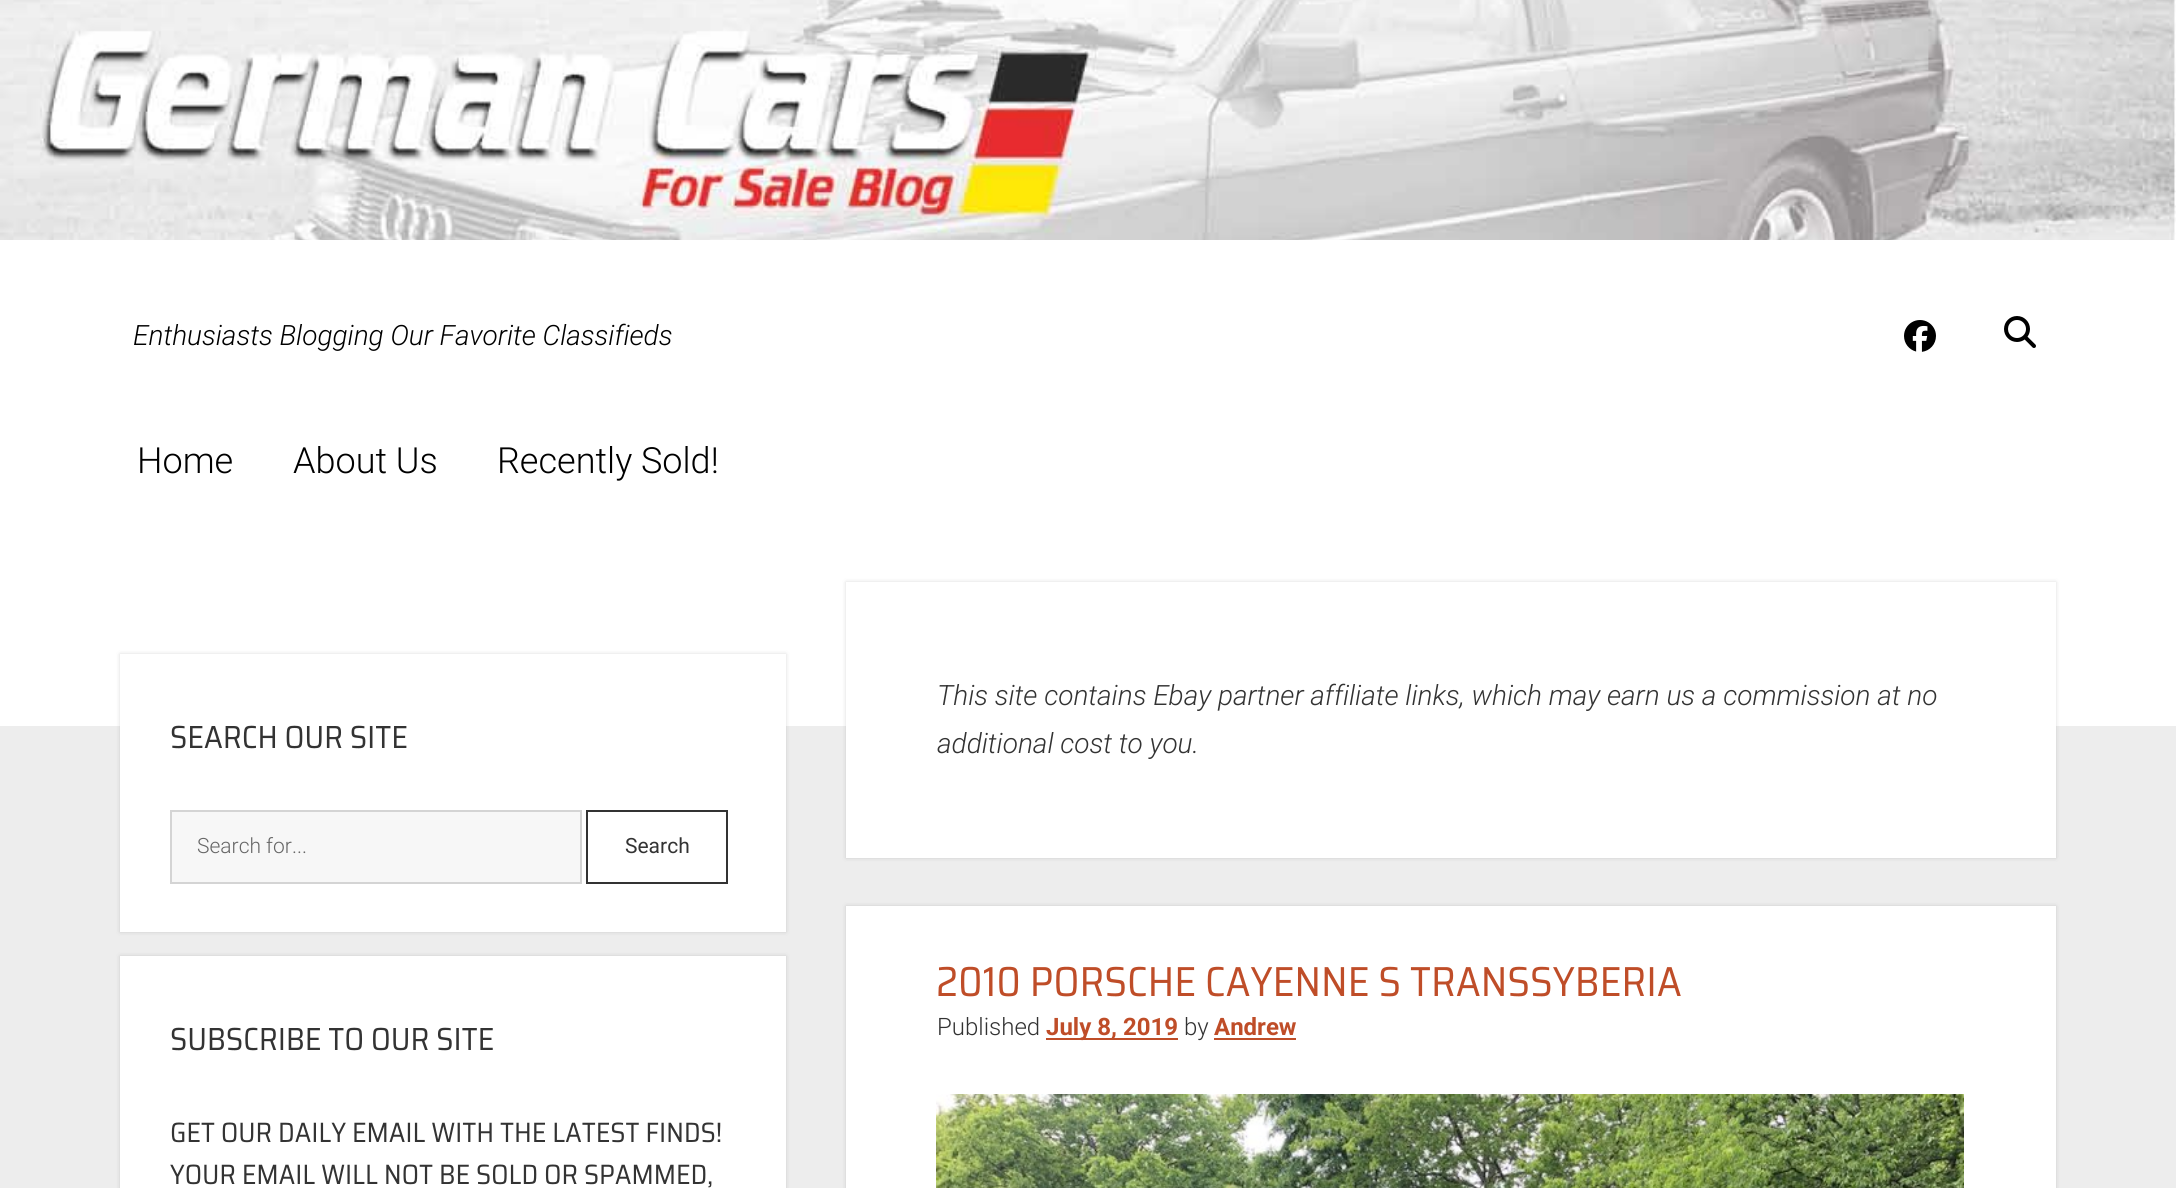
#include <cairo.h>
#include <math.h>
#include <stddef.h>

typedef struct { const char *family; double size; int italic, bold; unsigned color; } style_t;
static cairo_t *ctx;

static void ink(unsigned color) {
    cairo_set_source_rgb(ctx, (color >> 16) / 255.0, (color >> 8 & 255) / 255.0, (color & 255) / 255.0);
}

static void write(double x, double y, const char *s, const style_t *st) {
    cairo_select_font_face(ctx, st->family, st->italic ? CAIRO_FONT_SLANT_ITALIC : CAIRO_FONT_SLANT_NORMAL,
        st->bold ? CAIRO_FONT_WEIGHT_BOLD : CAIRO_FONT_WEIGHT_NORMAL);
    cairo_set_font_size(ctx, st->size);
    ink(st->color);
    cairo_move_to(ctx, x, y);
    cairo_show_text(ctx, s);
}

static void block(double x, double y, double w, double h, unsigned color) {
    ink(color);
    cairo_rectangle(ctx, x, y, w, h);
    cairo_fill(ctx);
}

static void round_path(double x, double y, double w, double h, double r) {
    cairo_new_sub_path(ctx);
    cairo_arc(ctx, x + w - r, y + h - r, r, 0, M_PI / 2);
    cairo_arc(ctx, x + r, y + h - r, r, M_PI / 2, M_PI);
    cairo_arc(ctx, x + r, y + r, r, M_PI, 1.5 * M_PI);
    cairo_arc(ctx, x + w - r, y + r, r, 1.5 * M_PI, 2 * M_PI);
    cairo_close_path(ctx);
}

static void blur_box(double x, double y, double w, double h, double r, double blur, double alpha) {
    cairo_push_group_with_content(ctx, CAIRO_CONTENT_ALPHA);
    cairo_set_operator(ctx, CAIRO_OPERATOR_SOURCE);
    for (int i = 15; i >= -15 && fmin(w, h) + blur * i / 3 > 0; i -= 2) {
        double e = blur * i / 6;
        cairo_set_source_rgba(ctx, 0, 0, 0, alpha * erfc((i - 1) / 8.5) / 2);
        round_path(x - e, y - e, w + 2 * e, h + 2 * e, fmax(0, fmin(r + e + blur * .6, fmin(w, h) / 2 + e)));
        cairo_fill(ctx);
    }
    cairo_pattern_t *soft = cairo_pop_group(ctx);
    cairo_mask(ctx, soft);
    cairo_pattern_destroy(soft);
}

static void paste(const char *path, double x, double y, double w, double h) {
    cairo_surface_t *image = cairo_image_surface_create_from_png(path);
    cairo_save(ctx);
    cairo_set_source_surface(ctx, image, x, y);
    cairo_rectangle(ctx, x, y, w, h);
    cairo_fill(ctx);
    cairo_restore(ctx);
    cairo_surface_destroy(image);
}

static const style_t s1 = {"Roboto Light", 28, 1, 0, 0x000000};
static const style_t s2 = {"Roboto Light", 36, 0, 0, 0x000000};
static const style_t s3 = {"Roboto Light", 21, 0, 0, 0x666666};
static const style_t s4 = {"Roboto", 21, 0, 0, 0x333333};
static const style_t s5 = {"Roboto Light", 28, 1, 0, 0x333333};
static const style_t s6 = {"Roboto Light", 24, 0, 0, 0x333333};
static const style_t s7 = {"Roboto", 24, 0, 1, 0xbf4d28};

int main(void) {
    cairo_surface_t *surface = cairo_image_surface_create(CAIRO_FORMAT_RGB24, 2176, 1188);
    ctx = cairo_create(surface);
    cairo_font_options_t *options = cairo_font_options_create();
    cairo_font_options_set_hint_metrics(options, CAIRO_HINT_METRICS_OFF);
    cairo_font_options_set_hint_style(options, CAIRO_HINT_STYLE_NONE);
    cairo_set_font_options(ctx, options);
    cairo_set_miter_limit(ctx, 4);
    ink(0xededed);
    cairo_paint(ctx);
    paste("pic1.png", 0, 0, 2176, 240);
    block(0, 240, 2176, 486, 0xffffff);
    write(133, 345, "Enthusiasts Blogging Our Favorite Classifieds", &s1);
    paste("pic2.png", 1904, 320, 32, 32);
    paste("pic3.png", 2004, 316, 32, 32);
    write(137, 473, "Home", &s2);
    write(293, 473, "About Us", &s2);
    write(497, 473, "Recently Sold!", &s2);
    ink(0x3a3a3a);
    blur_box(120, 654, 666, 278, 0, 2, 0.2);
    block(120, 654, 666, 278, 0xffffff);
    paste("pic4.png", 171, 725, 236, 24);
    ink(0xf7f7f7);
    cairo_rectangle(ctx, 171, 811, 410, 72);
    cairo_fill_preserve(ctx);
    ink(0xd4d4d4);
    cairo_stroke(ctx);
    write(197, 853, "Search for...", &s3);
    cairo_rectangle(ctx, 587, 811, 140, 72);
    ink(0x333333);
    cairo_stroke(ctx);
    write(625, 853, "Search", &s4);
    ink(0x3a3a3a);
    blur_box(120, 956, 666, 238, 0, 2, 0.2);
    block(120, 956, 666, 232, 0xffffff);
    paste("pic5.png", 171, 1027, 322, 24);
    paste("pic6.png", 171, 1122, 550, 21);
    paste("pic7.png", 170, 1164, 542, 24);
    ink(0x3a3a3a);
    blur_box(846, 582, 1210, 276, 0, 2, 0.2);
    block(846, 582, 1210, 276, 0xffffff);
    write(937, 705, "This site contains Ebay partner affiliate links, which may earn us a commission at no", &s5);
    write(937, 753, "additional cost to you.", &s5);
    ink(0x3a3a3a);
    blur_box(846, 906, 1210, 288, 0, 2, 0.2);
    block(846, 906, 1210, 282, 0xffffff);
    paste("pic8.png", 938, 966, 743, 31);
    write(937, 1035, "Published", &s6);
    block(1046, 1038, 132, 2, 0xbf4d28);
    write(1046, 1035, "July 8, 2019", &s7);
    write(1184, 1035, "by", &s6);
    write(1214, 1035, "Andrew", &s7);
    block(1214, 1038, 82, 2, 0xbf4d28);
    paste("pic9.png", 936, 1094, 1028, 94);
    cairo_surface_write_to_png(surface, "screenshot.png");
    cairo_font_options_destroy(options);
    cairo_destroy(ctx);
    cairo_surface_destroy(surface);
    return 0;
}
